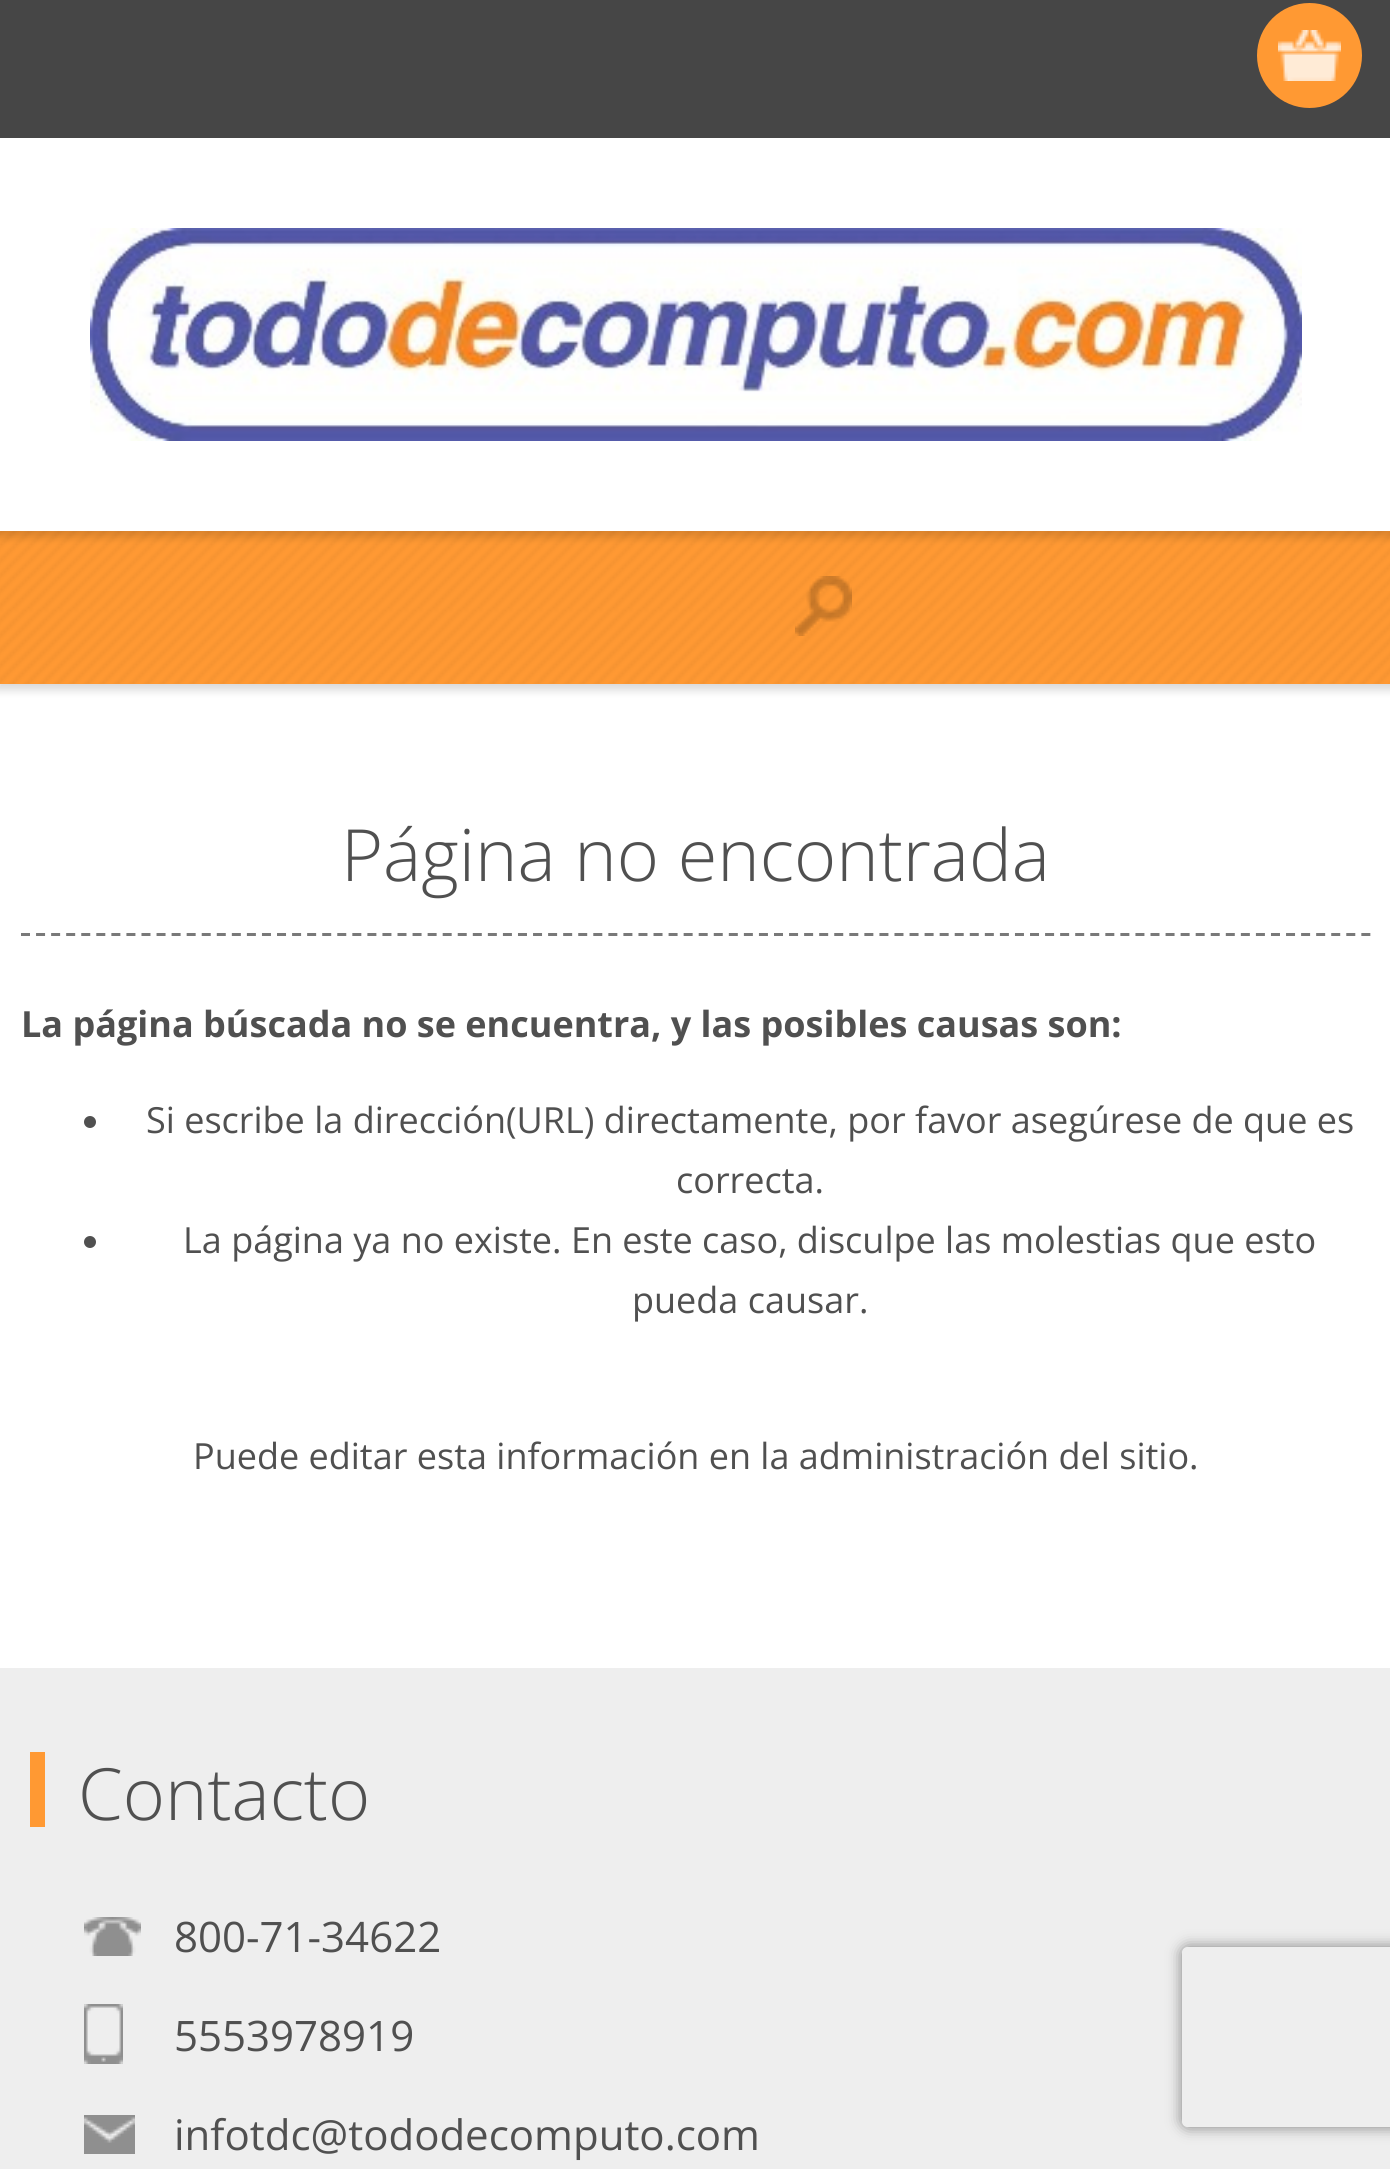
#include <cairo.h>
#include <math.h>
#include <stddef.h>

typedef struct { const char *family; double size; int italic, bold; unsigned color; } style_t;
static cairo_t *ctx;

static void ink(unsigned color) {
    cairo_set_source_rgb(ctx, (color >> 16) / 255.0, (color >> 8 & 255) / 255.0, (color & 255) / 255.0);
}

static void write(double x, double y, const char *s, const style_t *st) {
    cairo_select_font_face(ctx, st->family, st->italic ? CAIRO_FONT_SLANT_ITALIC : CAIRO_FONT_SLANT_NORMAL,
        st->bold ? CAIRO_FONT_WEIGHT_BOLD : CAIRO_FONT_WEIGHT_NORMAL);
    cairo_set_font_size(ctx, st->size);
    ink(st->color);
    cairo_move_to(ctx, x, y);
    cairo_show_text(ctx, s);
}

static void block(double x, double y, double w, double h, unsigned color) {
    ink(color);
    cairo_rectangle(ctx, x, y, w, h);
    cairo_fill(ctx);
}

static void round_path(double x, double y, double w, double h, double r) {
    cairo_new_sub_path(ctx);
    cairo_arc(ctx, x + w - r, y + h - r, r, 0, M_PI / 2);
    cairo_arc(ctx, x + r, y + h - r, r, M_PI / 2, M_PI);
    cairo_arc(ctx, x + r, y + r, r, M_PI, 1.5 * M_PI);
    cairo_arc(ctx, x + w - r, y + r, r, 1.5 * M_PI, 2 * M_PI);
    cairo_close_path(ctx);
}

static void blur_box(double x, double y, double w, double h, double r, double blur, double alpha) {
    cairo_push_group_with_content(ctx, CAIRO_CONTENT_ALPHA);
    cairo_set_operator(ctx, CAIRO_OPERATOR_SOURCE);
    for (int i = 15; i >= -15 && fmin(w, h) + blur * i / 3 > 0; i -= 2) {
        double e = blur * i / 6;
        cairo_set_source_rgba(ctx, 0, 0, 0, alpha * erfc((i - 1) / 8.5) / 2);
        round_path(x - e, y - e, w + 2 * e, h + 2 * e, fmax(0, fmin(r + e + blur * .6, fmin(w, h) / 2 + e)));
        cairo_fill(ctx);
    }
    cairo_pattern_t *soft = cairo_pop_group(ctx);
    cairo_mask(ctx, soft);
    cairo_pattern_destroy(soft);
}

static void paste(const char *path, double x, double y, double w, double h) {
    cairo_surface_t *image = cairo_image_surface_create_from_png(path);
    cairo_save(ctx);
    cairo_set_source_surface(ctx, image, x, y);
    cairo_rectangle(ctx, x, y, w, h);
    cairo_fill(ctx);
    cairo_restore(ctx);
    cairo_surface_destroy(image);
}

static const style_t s1 = {"Open Sans Light", 72, 0, 0, 0x505050};
static const style_t s2 = {"Open Sans", 36, 0, 1, 0x505050};
static const style_t s3 = {"Open Sans", 36, 0, 0, 0x505050};
static const style_t s4 = {"Open Sans", 42, 0, 0, 0x505050};

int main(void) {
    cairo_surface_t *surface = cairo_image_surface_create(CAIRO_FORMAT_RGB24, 1390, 2169);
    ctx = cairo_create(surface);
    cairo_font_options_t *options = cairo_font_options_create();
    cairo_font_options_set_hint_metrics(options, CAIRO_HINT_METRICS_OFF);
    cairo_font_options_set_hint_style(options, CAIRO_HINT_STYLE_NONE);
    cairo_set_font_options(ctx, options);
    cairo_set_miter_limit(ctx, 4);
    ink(0xffffff);
    cairo_paint(ctx);
    ink(0x000000);
    blur_box(-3, 531, 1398, 159, 0, 4.5, 0.15);
    block(0, 531, 1390, 153, 0xff9933);
    paste("pic3.png", 0, 531, 1390, 153);
    ink(0x000000);
    blur_box(-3, -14, 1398, 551, 0, 4.5, 0.15);
    block(0, 0, 1390, 138, 0x464646);
    ink(0xff9933);
    cairo_arc(ctx, 1309.5, 55.5, 52.5, 0, 2 * M_PI);
    cairo_fill(ctx);
    paste("pic1.png", 1278, 30, 63, 51);
    block(0, 138, 1390, 393, 0xffffff);
    paste("pic2.png", 90, 228, 1212, 213);
    paste("pic4.png", 795, 576, 57, 60);
    cairo_new_path(ctx);
    cairo_move_to(ctx, 21, 934.5);
    cairo_line_to(ctx, 1371, 934.5);
    ink(0x797979);
    cairo_set_line_width(ctx, 3);
    cairo_set_dash(ctx, (double[]){9, 6.06}, 2, 0);
    cairo_stroke(ctx);
    write(341, 881, "Página no encontrada", &s1);
    write(21, 1037, "La página búscada no se encuentra, y las posibles causas son:", &s2);
    cairo_new_path(ctx);
    cairo_arc(ctx, 90, 1122, 6, 0, 2 * M_PI);
    cairo_fill(ctx);
    write(146, 1133, "Si escribe la dirección(URL) directamente, por favor asegúrese de que es", &s3);
    write(676, 1193, "correcta.", &s3);
    cairo_new_path(ctx);
    cairo_arc(ctx, 90, 1242, 6, 0, 2 * M_PI);
    cairo_fill(ctx);
    write(183, 1253, "La página ya no existe. En este caso, disculpe las molestias que esto", &s3);
    write(632, 1313, "pueda causar.", &s3);
    write(193, 1469, "Puede editar esta información en la administración del sitio.", &s3);
    block(0, 1668, 1390, 501, 0xeeeeee);
    block(30, 1752, 15, 75, 0xff9933);
    write(78, 1820, "Contacto", &s1);
    paste("pic5.png", 84, 1917, 57, 39);
    write(174, 1952, "800-71-34622", &s4);
    paste("pic6.png", 84, 2004, 39, 60);
    write(174, 2051, "5553978919", &s4);
    paste("pic7.png", 84, 2115, 51, 39);
    write(174, 2150, "infotdc@tododecomputo.com", &s4);
    cairo_save(ctx);
    cairo_set_fill_rule(ctx, CAIRO_FILL_RULE_EVEN_ODD);
    cairo_new_path(ctx);
    cairo_move_to(ctx, 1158, 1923);
    cairo_line_to(ctx, 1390, 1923);
    cairo_line_to(ctx, 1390, 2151);
    cairo_line_to(ctx, 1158, 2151);
    cairo_close_path(ctx);
    cairo_move_to(ctx, 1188, 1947);
    cairo_line_to(ctx, 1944, 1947);
    cairo_curve_to(ctx, 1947.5, 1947, 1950, 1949.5, 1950, 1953);
    cairo_line_to(ctx, 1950, 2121);
    cairo_curve_to(ctx, 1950, 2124.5, 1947.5, 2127, 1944, 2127);
    cairo_line_to(ctx, 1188, 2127);
    cairo_curve_to(ctx, 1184.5, 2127, 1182, 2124.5, 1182, 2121);
    cairo_line_to(ctx, 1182, 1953);
    cairo_curve_to(ctx, 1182, 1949.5, 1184.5, 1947, 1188, 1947);
    cairo_close_path(ctx);
    cairo_clip(ctx);
    ink(0x808080);
    blur_box(1182, 1947, 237, 180, 6, 7.5, 1);
    cairo_restore(ctx);
    cairo_surface_write_to_png(surface, "screenshot.png");
    cairo_font_options_destroy(options);
    cairo_destroy(ctx);
    cairo_surface_destroy(surface);
    return 0;
}
